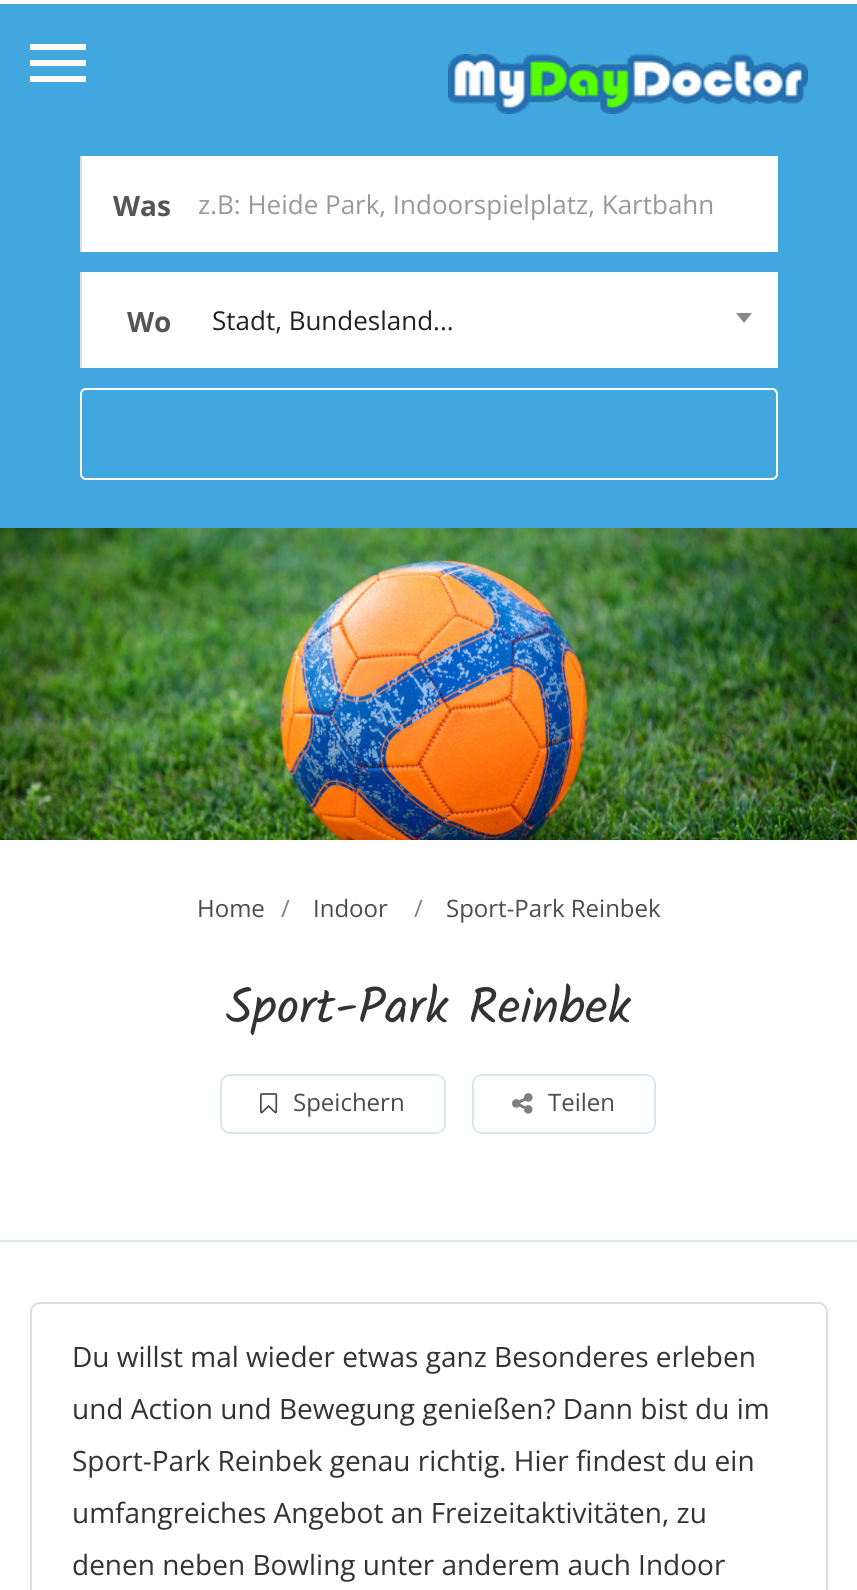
#include <cairo.h>
#include <math.h>
#include <stddef.h>

typedef struct { const char *family; double size; int italic, bold; unsigned color; } style_t;
static cairo_t *ctx;

static void ink(unsigned color) {
    cairo_set_source_rgb(ctx, (color >> 16) / 255.0, (color >> 8 & 255) / 255.0, (color & 255) / 255.0);
}

static void write(double x, double y, const char *s, const style_t *st) {
    cairo_select_font_face(ctx, st->family, st->italic ? CAIRO_FONT_SLANT_ITALIC : CAIRO_FONT_SLANT_NORMAL,
        st->bold ? CAIRO_FONT_WEIGHT_BOLD : CAIRO_FONT_WEIGHT_NORMAL);
    cairo_set_font_size(ctx, st->size);
    ink(st->color);
    cairo_move_to(ctx, x, y);
    cairo_show_text(ctx, s);
}

static void block(double x, double y, double w, double h, unsigned color) {
    ink(color);
    cairo_rectangle(ctx, x, y, w, h);
    cairo_fill(ctx);
}

static void round_path(double x, double y, double w, double h, double r) {
    cairo_new_sub_path(ctx);
    cairo_arc(ctx, x + w - r, y + h - r, r, 0, M_PI / 2);
    cairo_arc(ctx, x + r, y + h - r, r, M_PI / 2, M_PI);
    cairo_arc(ctx, x + r, y + r, r, M_PI, 1.5 * M_PI);
    cairo_arc(ctx, x + w - r, y + r, r, 1.5 * M_PI, 2 * M_PI);
    cairo_close_path(ctx);
}

static void paste(const char *path, double x, double y, double w, double h) {
    cairo_surface_t *image = cairo_image_surface_create_from_png(path);
    cairo_save(ctx);
    cairo_set_source_surface(ctx, image, x, y);
    cairo_rectangle(ctx, x, y, w, h);
    cairo_fill(ctx);
    cairo_restore(ctx);
    cairo_surface_destroy(image);
}

static const style_t s1 = {"Open Sans", 28, 0, 1, 0x555555};
static const style_t s2 = {"Open Sans", 26, 0, 0, 0x999999};
static const style_t s3 = {"Open Sans", 26, 0, 0, 0x222222};
static const style_t s4 = {"Open Sans", 24, 0, 0, 0x4c4c4c};
static const style_t s5 = {"Open Sans", 24, 0, 0, 0x7f7f7f};
static const style_t s6 = {"Kalam", 50, 0, 0, 0x333333};
static const style_t s7 = {"Open Sans", 28, 0, 0, 0x333333};

int main(void) {
    cairo_surface_t *surface = cairo_image_surface_create(CAIRO_FORMAT_RGB24, 857, 1590);
    ctx = cairo_create(surface);
    cairo_font_options_t *options = cairo_font_options_create();
    cairo_font_options_set_hint_metrics(options, CAIRO_HINT_METRICS_OFF);
    cairo_font_options_set_hint_style(options, CAIRO_HINT_STYLE_NONE);
    cairo_set_font_options(ctx, options);
    cairo_set_miter_limit(ctx, 4);
    ink(0xffffff);
    cairo_paint(ctx);
    block(0, 4, 857, 524, 0x42a7df);
    block(30, 44, 56, 6, 0xffffff);
    block(30, 60, 56, 6, 0xffffff);
    block(30, 76, 56, 6, 0xffffff);
    paste("pic1.png", 448, 54, 360, 60);
    block(82, 156, 696, 96, 0xffffff);
    block(80, 156, 2, 96, 0xdedede);
    write(113, 216, "Was", &s1);
    write(198, 214, "z.B: Heide Park, Indoorspielplatz, Kartbahn", &s2);
    block(82, 272, 696, 96, 0xffffff);
    block(80, 272, 2, 96, 0xdedede);
    write(127, 332, "Wo", &s1);
    write(212, 330, "Stadt, Bundesland...", &s3);
    ink(0x888888);
    cairo_new_path(ctx);
    cairo_move_to(ctx, 736, 313);
    cairo_line_to(ctx, 752, 313);
    cairo_line_to(ctx, 744, 323);
    cairo_close_path(ctx);
    cairo_fill(ctx);
    round_path(81, 389, 696, 90, 5);
    ink(0xffffff);
    cairo_stroke(ctx);
    paste("pic2.png", 0, 528, 857, 312);
    block(0, 1240, 857, 2, 0xdbe7ef);
    write(197, 917, "Home", &s4);
    write(281, 917, "/", &s5);
    write(313, 917, "Indoor", &s4);
    write(414, 917, "/", &s5);
    write(446, 917, "Sport-Park Reinbek", &s4);
    write(226, 1023, "Sport-Park Reinbek", &s6);
    round_path(221, 1075, 224, 58, 9);
    ink(0xdbe7ef);
    cairo_stroke(ctx);
    paste("pic3.png", 260, 1093, 18, 21);
    write(293, 1111, "Speichern", &s4);
    round_path(473, 1075, 182, 58, 9);
    ink(0xdbe7ef);
    cairo_stroke(ctx);
    paste("pic4.png", 512, 1093, 21, 21);
    write(548, 1111, "Teilen", &s4);
    round_path(31, 1303, 796, 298, 9);
    ink(0xdedede);
    cairo_stroke(ctx);
    write(72, 1367, "Du willst mal wieder etwas ganz Besonderes erleben", &s7);
    write(72, 1419, "und Action und Bewegung genießen? Dann bist du im", &s7);
    write(72, 1471, "Sport-Park Reinbek genau richtig. Hier findest du ein", &s7);
    write(72, 1523, "umfangreiches Angebot an Freizeitaktivitäten, zu", &s7);
    write(72, 1575, "denen neben Bowling unter anderem auch Indoor", &s7);
    cairo_surface_write_to_png(surface, "screenshot.png");
    cairo_font_options_destroy(options);
    cairo_destroy(ctx);
    cairo_surface_destroy(surface);
    return 0;
}
